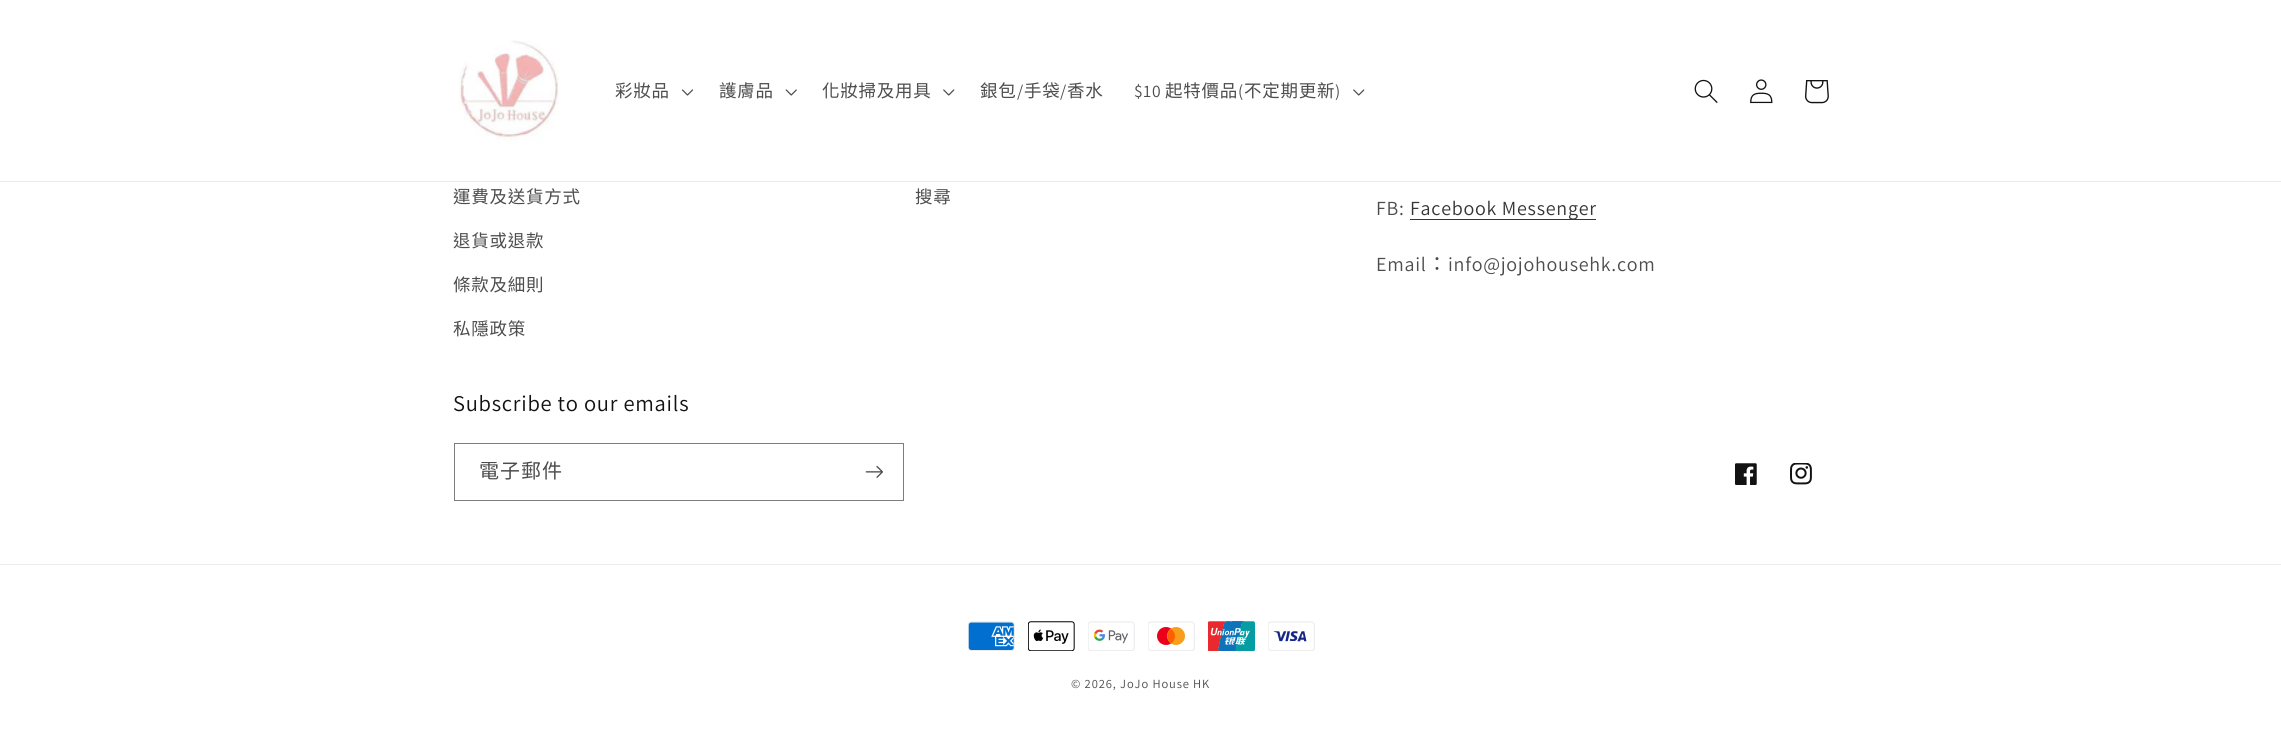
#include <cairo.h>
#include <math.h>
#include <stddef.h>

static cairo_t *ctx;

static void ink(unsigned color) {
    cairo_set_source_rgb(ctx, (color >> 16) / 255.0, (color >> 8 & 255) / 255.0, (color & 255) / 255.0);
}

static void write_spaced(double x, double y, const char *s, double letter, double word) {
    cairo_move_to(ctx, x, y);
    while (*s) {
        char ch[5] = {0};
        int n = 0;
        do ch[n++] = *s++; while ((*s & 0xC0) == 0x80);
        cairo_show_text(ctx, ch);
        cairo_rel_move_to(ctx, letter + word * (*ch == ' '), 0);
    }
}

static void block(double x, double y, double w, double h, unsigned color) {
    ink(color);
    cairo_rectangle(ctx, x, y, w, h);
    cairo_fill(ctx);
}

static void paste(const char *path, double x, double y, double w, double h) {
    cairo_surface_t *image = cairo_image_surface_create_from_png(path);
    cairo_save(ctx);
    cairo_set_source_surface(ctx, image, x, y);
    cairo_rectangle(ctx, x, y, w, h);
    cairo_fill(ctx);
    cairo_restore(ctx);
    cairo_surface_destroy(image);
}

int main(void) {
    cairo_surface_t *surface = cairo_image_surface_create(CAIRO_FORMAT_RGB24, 2281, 741);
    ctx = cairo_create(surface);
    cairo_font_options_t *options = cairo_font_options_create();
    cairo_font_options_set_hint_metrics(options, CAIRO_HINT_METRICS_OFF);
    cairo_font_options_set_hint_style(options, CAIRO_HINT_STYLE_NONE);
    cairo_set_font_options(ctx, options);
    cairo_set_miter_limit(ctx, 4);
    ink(0xffffff);
    cairo_paint(ctx);
    block(0, 181, 2281, 1, 0xececec);
    paste("pic1.png", 459, 40, 100, 104);
    cairo_select_font_face(ctx, "Noto Sans CJK TC", CAIRO_FONT_SLANT_NORMAL, CAIRO_FONT_WEIGHT_NORMAL);
    cairo_set_font_size(ctx, 17.5);
    ink(0x4d4d4d);
    write_spaced(615, 97, "彩妝品", 0.75, 0);
    paste("pic2.png", 682, 89, 11, 7);
    write_spaced(719, 97, "護膚品", 0.75, 0);
    paste("pic3.png", 785, 89, 12, 7);
    write_spaced(822, 97, "化妝掃及用具", 0.75, 0);
    paste("pic4.png", 943, 89, 12, 7);
    write_spaced(980, 97, "銀包", 0.75, 0);
    cairo_select_font_face(ctx, "Assistant", CAIRO_FONT_SLANT_NORMAL, CAIRO_FONT_WEIGHT_NORMAL);
    write_spaced(1017, 97, "/", 0.75, 0);
    cairo_select_font_face(ctx, "Noto Sans CJK TC", CAIRO_FONT_SLANT_NORMAL, CAIRO_FONT_WEIGHT_NORMAL);
    write_spaced(1024, 97, "手袋", 0.75, 0);
    cairo_select_font_face(ctx, "Assistant", CAIRO_FONT_SLANT_NORMAL, CAIRO_FONT_WEIGHT_NORMAL);
    write_spaced(1060, 97, "/", 0.75, 0);
    cairo_select_font_face(ctx, "Noto Sans CJK TC", CAIRO_FONT_SLANT_NORMAL, CAIRO_FONT_WEIGHT_NORMAL);
    write_spaced(1067, 97, "香水", 0.75, 0);
    cairo_select_font_face(ctx, "Assistant", CAIRO_FONT_SLANT_NORMAL, CAIRO_FONT_WEIGHT_NORMAL);
    write_spaced(1134, 97, "$10", 0.75, 0);
    cairo_select_font_face(ctx, "Noto Sans CJK TC", CAIRO_FONT_SLANT_NORMAL, CAIRO_FONT_WEIGHT_NORMAL);
    write_spaced(1165, 97, "起特價品", 0.75, 0);
    cairo_select_font_face(ctx, "Assistant", CAIRO_FONT_SLANT_NORMAL, CAIRO_FONT_WEIGHT_NORMAL);
    write_spaced(1238, 97, "(", 0.75, 0);
    cairo_select_font_face(ctx, "Noto Sans CJK TC", CAIRO_FONT_SLANT_NORMAL, CAIRO_FONT_WEIGHT_NORMAL);
    write_spaced(1244, 97, "不定期更新", 0.75, 0);
    cairo_select_font_face(ctx, "Assistant", CAIRO_FONT_SLANT_NORMAL, CAIRO_FONT_WEIGHT_NORMAL);
    write_spaced(1335, 97, ")", 0.75, 0);
    paste("pic4.png", 1353, 89, 12, 7);
    paste("pic5.png", 1694, 79, 24, 24);
    paste("pic6.png", 1750, 79, 23, 25);
    paste("pic7.png", 1805, 80, 24, 24);
    cairo_select_font_face(ctx, "Noto Sans CJK TC", CAIRO_FONT_SLANT_NORMAL, CAIRO_FONT_WEIGHT_NORMAL);
    write_spaced(453, 203, "運費及送貨方式", 0.75, 0);
    write_spaced(453, 247, "退貨或退款", 0.75, 0);
    write_spaced(453, 291, "條款及細則", 0.75, 0);
    write_spaced(453, 335, "私隱政策", 0.75, 0);
    write_spaced(915, 203, "搜尋", 0.75, 0);
    cairo_select_font_face(ctx, "Assistant", CAIRO_FONT_SLANT_NORMAL, CAIRO_FONT_WEIGHT_NORMAL);
    cairo_set_font_size(ctx, 20);
    write_spaced(1376, 215, "FB:", 0.75, 0);
    block(1410, 219, 186, 1, 0x363636);
    ink(0x353535);
    write_spaced(1410, 215, "Facebook Messenger", 0.75, 0);
    ink(0x4d4d4d);
    write_spaced(1376, 271, "Email", 0.75, 0);
    cairo_select_font_face(ctx, "Noto Sans CJK TC", CAIRO_FONT_SLANT_NORMAL, CAIRO_FONT_WEIGHT_NORMAL);
    write_spaced(1427, 271, "：", 0.75, 0);
    cairo_select_font_face(ctx, "Assistant", CAIRO_FONT_SLANT_NORMAL, CAIRO_FONT_WEIGHT_NORMAL);
    write_spaced(1448, 271, "info@jojohousehk.com", 0.75, 0);
    cairo_set_font_size(ctx, 22.5);
    ink(0x121212);
    write_spaced(453, 411, "Subscribe to our emails", 0.75, 0);
    cairo_rectangle(ctx, 454.5, 443.5, 449, 57);
    ink(0x7d7d7d);
    cairo_set_line_width(ctx, 1);
    cairo_stroke(ctx);
    cairo_select_font_face(ctx, "Noto Sans CJK TC", CAIRO_FONT_SLANT_NORMAL, CAIRO_FONT_WEIGHT_NORMAL);
    cairo_set_font_size(ctx, 20);
    ink(0x4d4d4d);
    write_spaced(479, 478, "電子郵件", 1, 0);
    paste("pic8.png", 865, 465, 18, 13);
    paste("pic9.png", 1735, 463, 22, 22);
    paste("pic10.png", 1790, 463, 22, 22);
    block(0, 564, 2281, 1, 0xececec);
    paste("pic11.png", 968, 621, 47, 30);
    paste("pic12.png", 1028, 621, 47, 30);
    paste("pic13.png", 1088, 621, 47, 30);
    paste("pic14.png", 1148, 621, 47, 30);
    paste("pic15.png", 1208, 621, 47, 30);
    paste("pic16.png", 1268, 621, 47, 30);
    cairo_select_font_face(ctx, "Assistant", CAIRO_FONT_SLANT_NORMAL, CAIRO_FONT_WEIGHT_NORMAL);
    cairo_set_font_size(ctx, 12.5);
    ink(0x4d4d4d);
    write_spaced(1071, 688, "© 2026, JoJo House", 0.9, 0);
    write_spaced(1193, 688, "HK", 0.9, 0);
    cairo_surface_write_to_png(surface, "screenshot.png");
    cairo_font_options_destroy(options);
    cairo_destroy(ctx);
    cairo_surface_destroy(surface);
    return 0;
}
